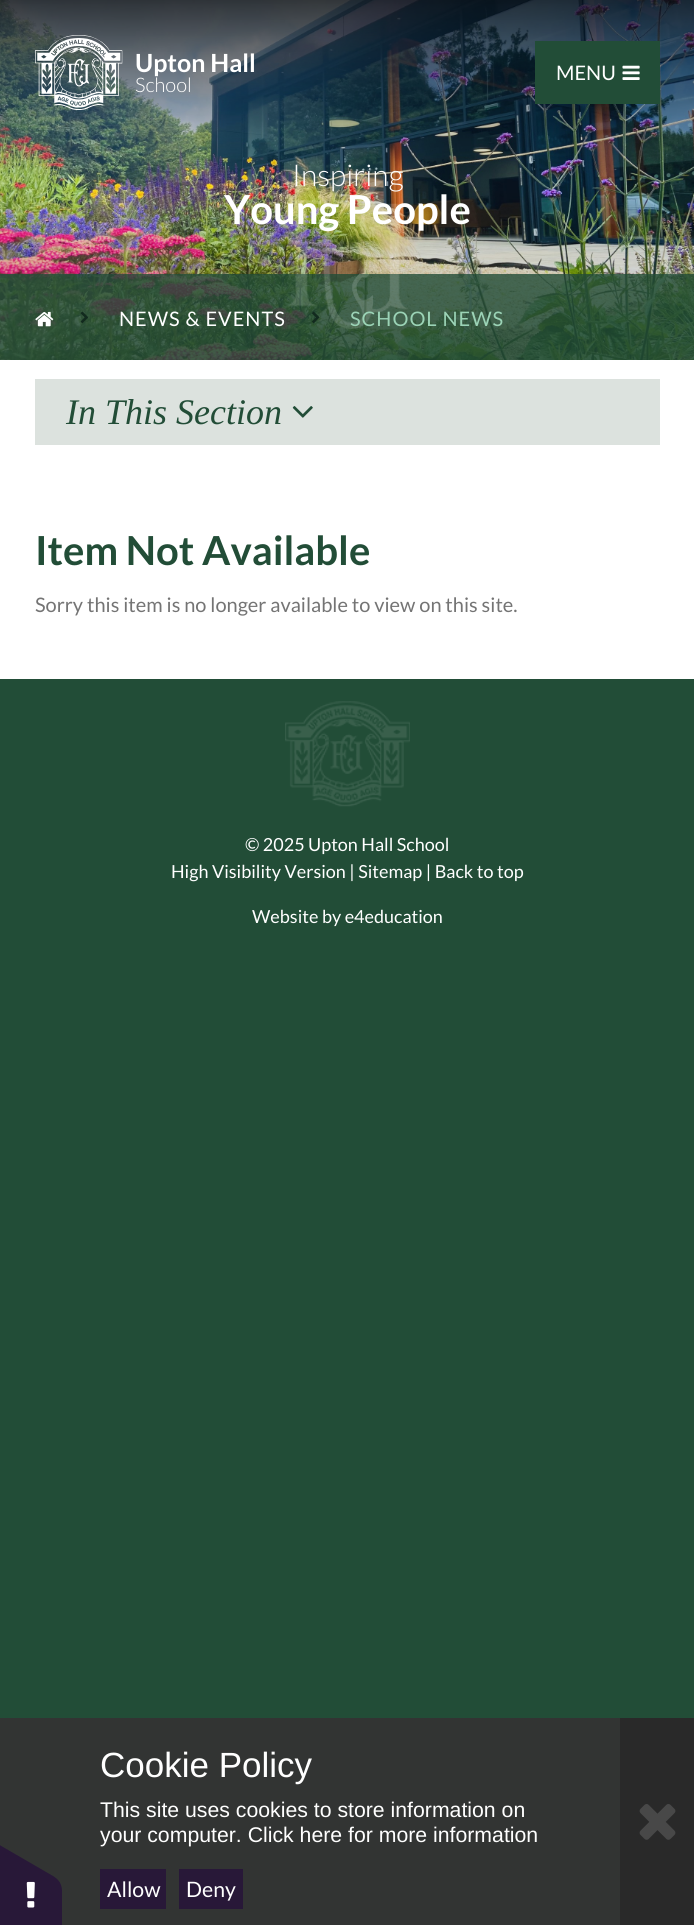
#include <cairo.h>
#include <math.h>
#include <stddef.h>

typedef struct { const char *family; double size; int italic, bold; unsigned color; } style_t;
static cairo_t *ctx;

static void ink(unsigned color) {
    cairo_set_source_rgb(ctx, (color >> 16) / 255.0, (color >> 8 & 255) / 255.0, (color & 255) / 255.0);
}

static void write(double x, double y, const char *s, const style_t *st) {
    cairo_select_font_face(ctx, st->family, st->italic ? CAIRO_FONT_SLANT_ITALIC : CAIRO_FONT_SLANT_NORMAL,
        st->bold ? CAIRO_FONT_WEIGHT_BOLD : CAIRO_FONT_WEIGHT_NORMAL);
    cairo_set_font_size(ctx, st->size);
    ink(st->color);
    cairo_move_to(ctx, x, y);
    cairo_show_text(ctx, s);
}

static void write_spaced(double x, double y, const char *s, double letter, double word) {
    cairo_move_to(ctx, x, y);
    while (*s) {
        char ch[5] = {0};
        int n = 0;
        do ch[n++] = *s++; while ((*s & 0xC0) == 0x80);
        cairo_show_text(ctx, ch);
        cairo_rel_move_to(ctx, letter + word * (*ch == ' '), 0);
    }
}

static void block(double x, double y, double w, double h, unsigned color) {
    ink(color);
    cairo_rectangle(ctx, x, y, w, h);
    cairo_fill(ctx);
}

static void paste(const char *path, double x, double y, double w, double h) {
    cairo_surface_t *image = cairo_image_surface_create_from_png(path);
    cairo_save(ctx);
    cairo_set_source_surface(ctx, image, x, y);
    cairo_rectangle(ctx, x, y, w, h);
    cairo_fill(ctx);
    cairo_restore(ctx);
    cairo_surface_destroy(image);
}

static const style_t s1 = {"Lato", 25, 0, 1, 0xffffff};
static const style_t s2 = {"Lato Light", 20, 0, 0, 0xffffff};
static const style_t s3 = {"Lato", 20, 0, 0, 0xffffff};
static const style_t s4 = {"Lato Light", 30, 0, 0, 0xffffff};
static const style_t s5 = {"Lato", 40, 0, 1, 0xffffff};
static const style_t s6 = {"Liberation Serif", 36, 1, 0, 0x224d37};
static const style_t s7 = {"Lato", 40, 0, 1, 0x224d37};
static const style_t s8 = {"Lato", 20, 0, 0, 0x747474};
static const style_t s9 = {"Lato", 18, 0, 0, 0xffffff};
static const style_t s10 = {"Liberation Sans", 35, 0, 0, 0xffffff};
static const style_t s11 = {"Liberation Sans", 21.25, 0, 0, 0xffffff};
static const style_t s12 = {"Lato", 21.25, 0, 0, 0xffffff};

int main(void) {
    cairo_surface_t *surface = cairo_image_surface_create(CAIRO_FORMAT_RGB24, 694, 1925);
    ctx = cairo_create(surface);
    cairo_font_options_t *options = cairo_font_options_create();
    cairo_font_options_set_hint_metrics(options, CAIRO_HINT_METRICS_OFF);
    cairo_font_options_set_hint_style(options, CAIRO_HINT_STYLE_NONE);
    cairo_set_font_options(ctx, options);
    cairo_set_miter_limit(ctx, 4);
    ink(0x224d37);
    cairo_paint(ctx);
    paste("pic3.png", 0, 0, 694, 360);
    paste("pic1.png", 35, 35, 88, 75);
    write(135, 72, "Upton Hall", &s1);
    write(135, 92, "School", &s2);
    block(535, 41, 125, 63, 0x224d37);
    write(556, 80, "MENU", &s3);
    paste("pic2.png", 622, 65, 18, 15);
    write(292, 186, "Inspiring", &s4);
    write(224, 224, "Young People", &s5);
    cairo_set_source_rgba(ctx, 0.133, 0.302, 0.216, 0.8);
    cairo_rectangle(ctx, 0, 274, 694, 86);
    cairo_fill(ctx);
    paste("pic4.png", 285, 171, 123, 158);
    paste("pic5.png", 35, 311, 19, 16);
    paste("pic6.png", 80, 311, 8, 13);
    cairo_select_font_face(ctx, "Lato", CAIRO_FONT_SLANT_NORMAL, CAIRO_FONT_WEIGHT_NORMAL);
    cairo_set_font_size(ctx, 20);
    ink(0xffffff);
    write_spaced(119, 326, "NEWS & EVENTS", 1, 0);
    paste("pic7.png", 312, 311, 8, 13);
    ink(0x9bd3b6);
    write_spaced(350, 326, "SCHOOL NEWS", 1, 0);
    block(0, 360, 694, 319, 0xffffff);
    block(35, 379, 625, 66, 0xdce2de);
    write(66, 424, "In This Section", &s6);
    paste("pic8.png", 292, 406, 21, 12);
    write(35, 565, "Item Not Available", &s7);
    write(35, 612, "Sorry this item is no longer available to view on this site.", &s8);
    paste("pic9.png", 285, 701, 125, 106);
    write(245, 851, "© 2025 Upton Hall School", &s9);
    write(171, 878, "High Visibility Version | Sitemap | Back to top", &s9);
    write(252, 923, "Website by e4education", &s9);
    block(0, 1718, 620, 207, 0x323433);
    ink(0x281838);
    cairo_new_path(ctx);
    cairo_move_to(ctx, 62, 1891);
    cairo_line_to(ctx, 62, 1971);
    cairo_curve_to(ctx, 62, 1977, 60, 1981, 57, 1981);
    cairo_line_to(ctx, -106, 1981);
    cairo_curve_to(ctx, -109, 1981, -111, 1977, -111, 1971);
    cairo_line_to(ctx, -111, 1891);
    cairo_curve_to(ctx, -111, 1886, -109, 1881, -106, 1881);
    cairo_line_to(ctx, 57, 1881);
    cairo_curve_to(ctx, 60, 1881, 62, 1886, 62, 1891);
    cairo_close_path(ctx);
    cairo_fill(ctx);
    cairo_new_path(ctx);
    cairo_move_to(ctx, -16, 1836);
    cairo_line_to(ctx, 53, 1876);
    cairo_curve_to(ctx, 58, 1879, 61, 1883, 60, 1885);
    cairo_line_to(ctx, -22, 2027);
    cairo_curve_to(ctx, -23, 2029, -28, 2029, -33, 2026);
    cairo_line_to(ctx, -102, 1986);
    cairo_curve_to(ctx, -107, 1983, -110, 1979, -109, 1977);
    cairo_line_to(ctx, -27, 1835);
    cairo_curve_to(ctx, -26, 1833, -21, 1833, -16, 1836);
    cairo_close_path(ctx);
    cairo_fill(ctx);
    paste("pic10.png", 26, 1881, 9, 27);
    write(100, 1777, "Cookie Policy", &s10);
    write(100, 1817, "This site uses cookies to store information on", &s11);
    write(100, 1842, "your computer. Click here for more information", &s11);
    block(100, 1869, 66, 40, 0x281838);
    write(107, 1897, "Allow", &s12);
    block(179, 1869, 64, 40, 0x281838);
    write(186, 1897, "Deny", &s12);
    block(620, 1718, 74, 207, 0x292929);
    paste("pic11.png", 639, 1804, 37, 36);
    cairo_surface_write_to_png(surface, "screenshot.png");
    cairo_font_options_destroy(options);
    cairo_destroy(ctx);
    cairo_surface_destroy(surface);
    return 0;
}
